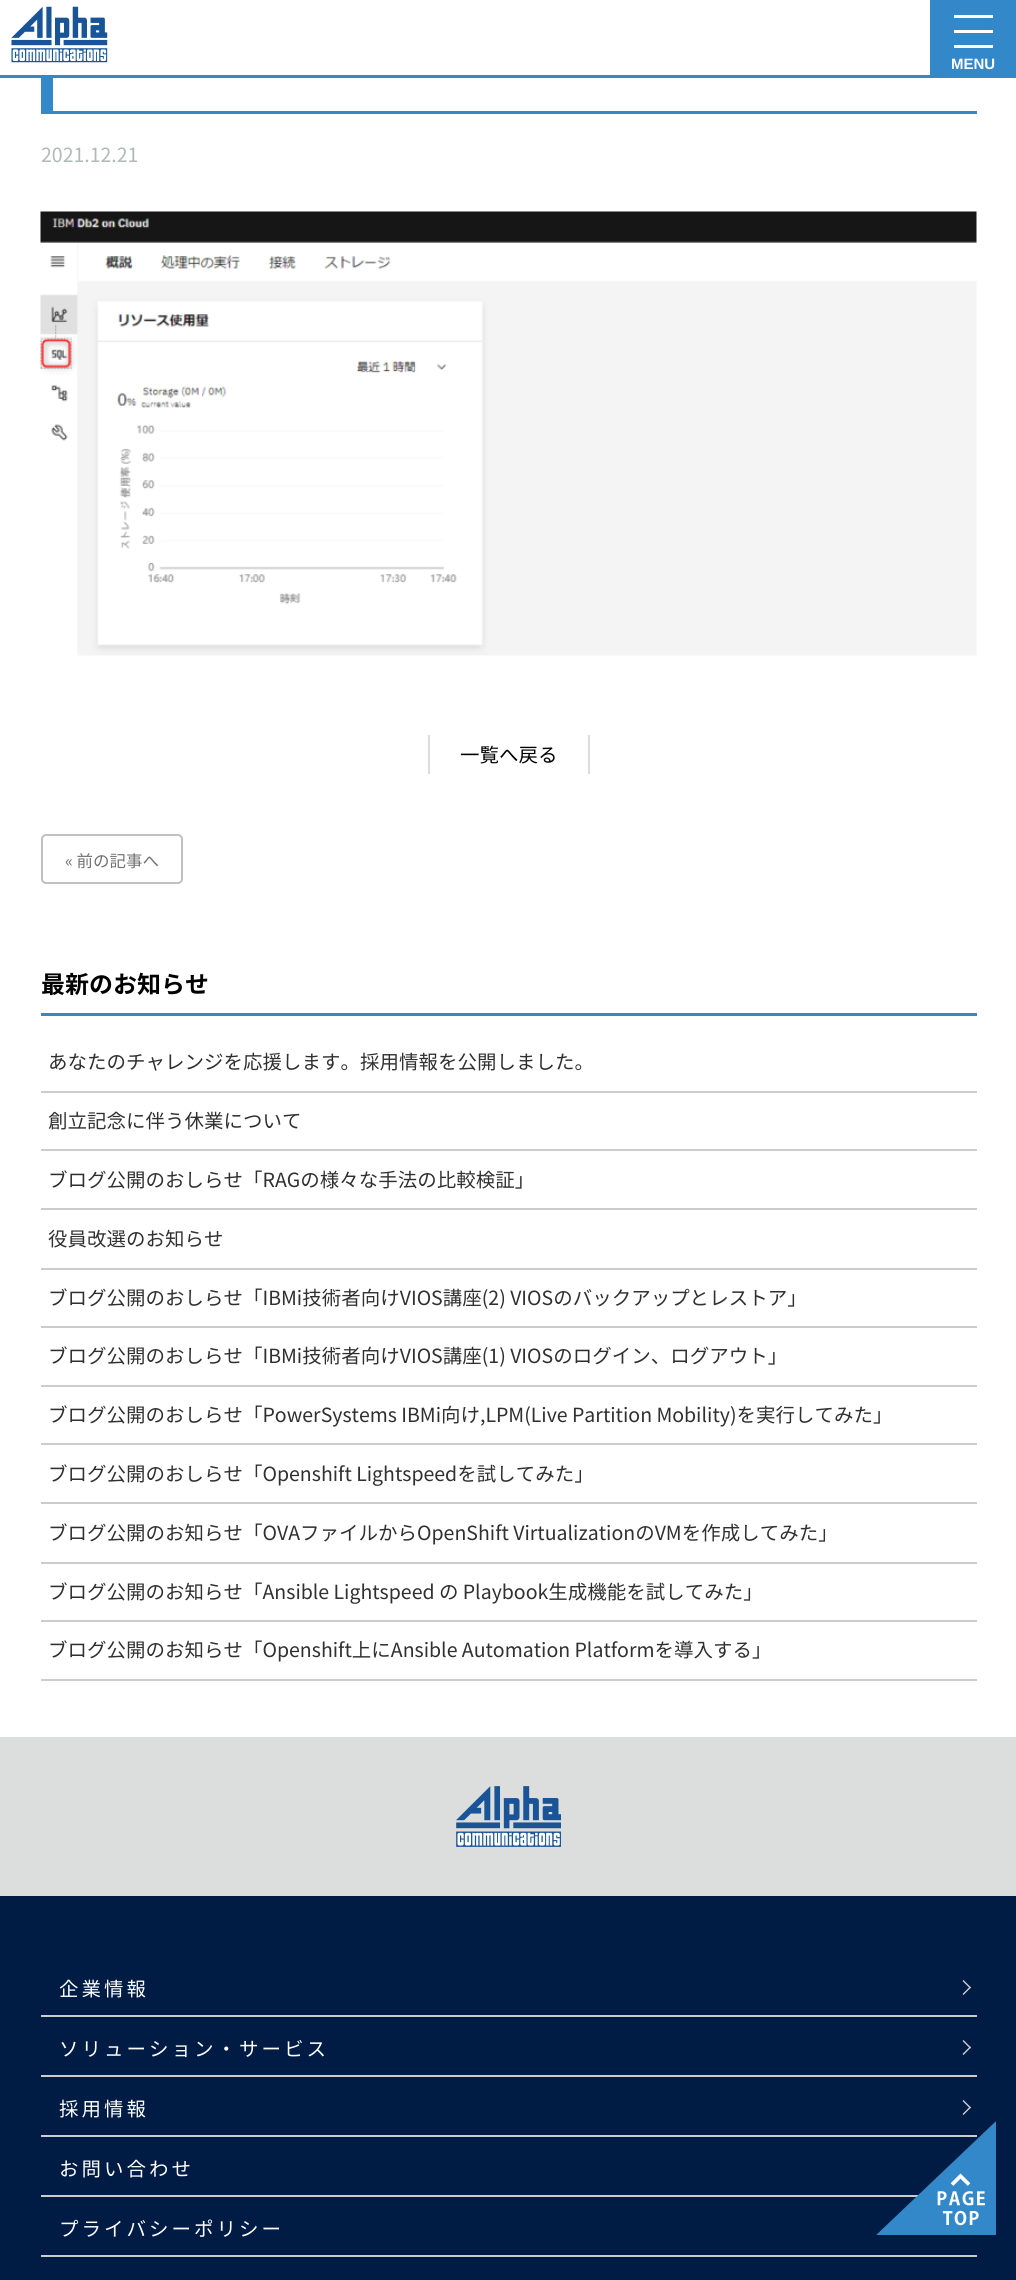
#include <cairo.h>
#include <math.h>
#include <stddef.h>

typedef struct { const char *family; double size; int italic, bold; unsigned color; } style_t;
static cairo_t *ctx;

static void ink(unsigned color) {
    cairo_set_source_rgb(ctx, (color >> 16) / 255.0, (color >> 8 & 255) / 255.0, (color & 255) / 255.0);
}

static void write(double x, double y, const char *s, const style_t *st) {
    cairo_select_font_face(ctx, st->family, st->italic ? CAIRO_FONT_SLANT_ITALIC : CAIRO_FONT_SLANT_NORMAL,
        st->bold ? CAIRO_FONT_WEIGHT_BOLD : CAIRO_FONT_WEIGHT_NORMAL);
    cairo_set_font_size(ctx, st->size);
    ink(st->color);
    cairo_move_to(ctx, x, y);
    cairo_show_text(ctx, s);
}

static void write_spaced(double x, double y, const char *s, double letter, double word) {
    cairo_move_to(ctx, x, y);
    while (*s) {
        char ch[5] = {0};
        int n = 0;
        do ch[n++] = *s++; while ((*s & 0xC0) == 0x80);
        cairo_show_text(ctx, ch);
        cairo_rel_move_to(ctx, letter + word * (*ch == ' '), 0);
    }
}

static void block(double x, double y, double w, double h, unsigned color) {
    ink(color);
    cairo_rectangle(ctx, x, y, w, h);
    cairo_fill(ctx);
}

static void round_path(double x, double y, double w, double h, double r) {
    cairo_new_sub_path(ctx);
    cairo_arc(ctx, x + w - r, y + h - r, r, 0, M_PI / 2);
    cairo_arc(ctx, x + r, y + h - r, r, M_PI / 2, M_PI);
    cairo_arc(ctx, x + r, y + r, r, M_PI, 1.5 * M_PI);
    cairo_arc(ctx, x + w - r, y + r, r, 1.5 * M_PI, 2 * M_PI);
    cairo_close_path(ctx);
}

static void paste(const char *path, double x, double y, double w, double h) {
    cairo_surface_t *image = cairo_image_surface_create_from_png(path);
    cairo_save(ctx);
    cairo_set_source_surface(ctx, image, x, y);
    cairo_rectangle(ctx, x, y, w, h);
    cairo_fill(ctx);
    cairo_restore(ctx);
    cairo_surface_destroy(image);
}

static const style_t s1 = {"Liberation Sans", 15, 0, 1, 0xffffff};
static const style_t s2 = {"Noto Sans JP", 19.5, 0, 0, 0xafbab5};
static const style_t s3 = {"Noto Sans JP", 19.5, 0, 0, 0x000000};
static const style_t s4 = {"Noto Sans JP", 16.5, 0, 0, 0x717171};
static const style_t s5 = {"Noto Sans JP", 24, 0, 1, 0x000000};
static const style_t s6 = {"Noto Sans JP", 19.5, 0, 0, 0x303030};

int main(void) {
    cairo_surface_t *surface = cairo_image_surface_create(CAIRO_FORMAT_RGB24, 1016, 2280);
    ctx = cairo_create(surface);
    cairo_font_options_t *options = cairo_font_options_create();
    cairo_font_options_set_hint_metrics(options, CAIRO_HINT_METRICS_OFF);
    cairo_font_options_set_hint_style(options, CAIRO_HINT_STYLE_NONE);
    cairo_set_font_options(ctx, options);
    cairo_set_miter_limit(ctx, 4);
    ink(0xffffff);
    cairo_paint(ctx);
    block(0, 75, 930, 3, 0x3388c9);
    paste("pic1.png", 11, 6, 97, 57);
    block(930, 0, 86, 78, 0x3388c9);
    block(954, 30, 39, 3, 0xffffff);
    block(954, 15, 39, 3, 0xffffff);
    block(954, 45, 39, 3, 0xffffff);
    write(951, 69, "MENU", &s1);
    block(53, 111, 924, 3, 0x3388c9);
    block(41, 78, 12, 36, 0x3388c9);
    write(41, 162, "2021.12.21", &s2);
    paste("pic2.png", 40, 211, 937, 445);
    block(588, 735, 2, 39, 0xdddddd);
    block(428, 735, 2, 39, 0xdddddd);
    write(460, 762, "一覧へ戻る", &s3);
    round_path(42, 835, 140, 48, 4);
    ink(0xc0c0c0);
    cairo_stroke(ctx);
    write(65, 867, "« 前の記事へ", &s4);
    block(41, 1013, 936, 3, 0x3388c9);
    write(41, 993, "最新のお知らせ", &s5);
    block(41, 1091, 936, 2, 0xcccccc);
    write(48, 1069, "あなたのチャレンジを応援します。採用情報を公開しました。", &s6);
    block(41, 1149, 936, 2, 0xcccccc);
    write(48, 1128, "創立記念に伴う休業について", &s6);
    block(41, 1208, 936, 2, 0xcccccc);
    write(48, 1187, "ブログ公開のおしらせ「RAGの様々な手法の比較検証」", &s6);
    block(41, 1268, 936, 2, 0xcccccc);
    write(48, 1246, "役員改選のお知らせ", &s6);
    block(41, 1326, 936, 2, 0xcccccc);
    write(48, 1305, "ブログ公開のおしらせ「IBMi技術者向けVIOS講座(2) VIOSのバックアップとレストア」", &s6);
    block(41, 1385, 936, 2, 0xcccccc);
    write(48, 1363, "ブログ公開のおしらせ「IBMi技術者向けVIOS講座(1) VIOSのログイン、ログアウト」", &s6);
    block(41, 1443, 936, 2, 0xcccccc);
    write(48, 1422, "ブログ公開のおしらせ「PowerSystems IBMi向け,LPM(Live Partition Mobility)を実行してみた」", &s6);
    block(41, 1502, 936, 2, 0xcccccc);
    write(48, 1481, "ブログ公開のおしらせ「Openshift Lightspeedを試してみた」", &s6);
    block(41, 1562, 936, 2, 0xcccccc);
    write(48, 1540, "ブログ公開のお知らせ「OVAファイルからOpenShift VirtualizationのVMを作成してみた」", &s6);
    block(41, 1620, 936, 2, 0xcccccc);
    write(48, 1599, "ブログ公開のお知らせ「Ansible Lightspeed の Playbook生成機能を試してみた」", &s6);
    block(41, 1679, 936, 2, 0xcccccc);
    write(48, 1657, "ブログ公開のお知らせ「Openshift上にAnsible Automation Platformを導入する」", &s6);
    block(0, 1737, 1016, 159, 0xdcdddd);
    paste("pic3.png", 456, 1786, 105, 61);
    block(0, 1896, 1016, 384, 0x001c44);
    block(41, 2015, 936, 2, 0xcccccc);
    ink(0xffffff);
    write_spaced(59, 1996, "企業情報", 3, 0);
    ink(0xcccccc);
    cairo_new_path(ctx);
    cairo_move_to(ctx, 963.5, 1980);
    cairo_line_to(ctx, 971, 1987.5);
    cairo_line_to(ctx, 970, 1988.5);
    cairo_line_to(ctx, 962.5, 1981);
    cairo_close_path(ctx);
    cairo_fill(ctx);
    cairo_new_path(ctx);
    cairo_move_to(ctx, 970, 1986.5);
    cairo_line_to(ctx, 971, 1987.5);
    cairo_line_to(ctx, 963.5, 1995);
    cairo_line_to(ctx, 962.5, 1994);
    cairo_close_path(ctx);
    cairo_fill(ctx);
    block(41, 2075, 936, 2, 0xcccccc);
    ink(0xffffff);
    write_spaced(59, 2056, "ソリューション・サービス", 3, 0);
    ink(0xcccccc);
    cairo_new_path(ctx);
    cairo_move_to(ctx, 963.5, 2040);
    cairo_line_to(ctx, 971, 2047.5);
    cairo_line_to(ctx, 970, 2048.5);
    cairo_line_to(ctx, 962.5, 2041);
    cairo_close_path(ctx);
    cairo_fill(ctx);
    cairo_new_path(ctx);
    cairo_move_to(ctx, 970, 2046.5);
    cairo_line_to(ctx, 971, 2047.5);
    cairo_line_to(ctx, 963.5, 2055);
    cairo_line_to(ctx, 962.5, 2054);
    cairo_close_path(ctx);
    cairo_fill(ctx);
    block(41, 2135, 936, 2, 0xcccccc);
    ink(0xffffff);
    write_spaced(59, 2116, "採用情報", 3, 0);
    ink(0xcccccc);
    cairo_new_path(ctx);
    cairo_move_to(ctx, 963.5, 2100);
    cairo_line_to(ctx, 971, 2107.5);
    cairo_line_to(ctx, 970, 2108.5);
    cairo_line_to(ctx, 962.5, 2101);
    cairo_close_path(ctx);
    cairo_fill(ctx);
    cairo_new_path(ctx);
    cairo_move_to(ctx, 970, 2106.5);
    cairo_line_to(ctx, 971, 2107.5);
    cairo_line_to(ctx, 963.5, 2115);
    cairo_line_to(ctx, 962.5, 2114);
    cairo_close_path(ctx);
    cairo_fill(ctx);
    block(41, 2195, 878, 2, 0xcccccc);
    ink(0xffffff);
    write_spaced(59, 2176, "お問い合わせ", 3, 0);
    block(41, 2255, 936, 2, 0xcccccc);
    ink(0xffffff);
    write_spaced(59, 2236, "プライバシーポリシー", 3, 0);
    paste("pic4.png", 876, 2121, 120, 114);
    cairo_surface_write_to_png(surface, "screenshot.png");
    cairo_font_options_destroy(options);
    cairo_destroy(ctx);
    cairo_surface_destroy(surface);
    return 0;
}
